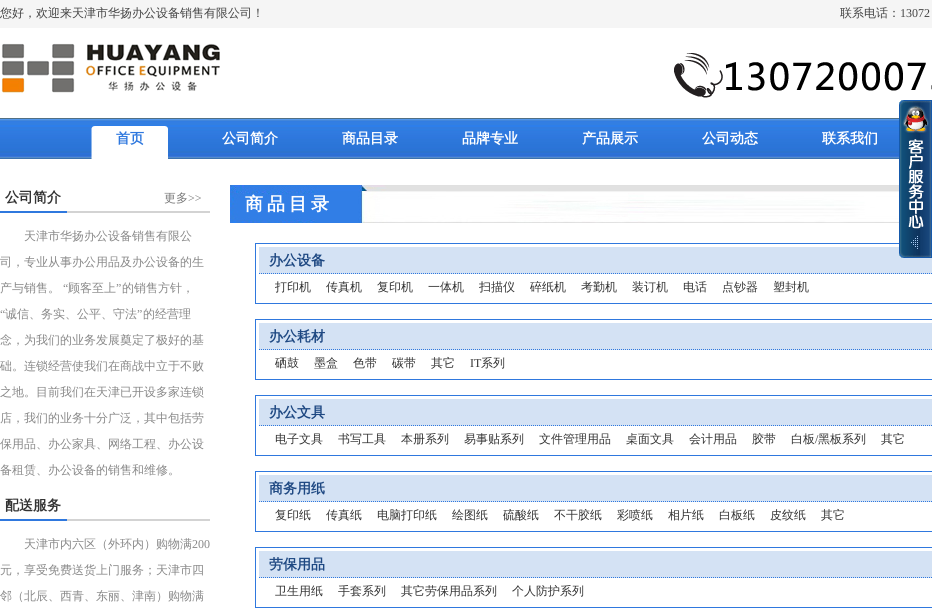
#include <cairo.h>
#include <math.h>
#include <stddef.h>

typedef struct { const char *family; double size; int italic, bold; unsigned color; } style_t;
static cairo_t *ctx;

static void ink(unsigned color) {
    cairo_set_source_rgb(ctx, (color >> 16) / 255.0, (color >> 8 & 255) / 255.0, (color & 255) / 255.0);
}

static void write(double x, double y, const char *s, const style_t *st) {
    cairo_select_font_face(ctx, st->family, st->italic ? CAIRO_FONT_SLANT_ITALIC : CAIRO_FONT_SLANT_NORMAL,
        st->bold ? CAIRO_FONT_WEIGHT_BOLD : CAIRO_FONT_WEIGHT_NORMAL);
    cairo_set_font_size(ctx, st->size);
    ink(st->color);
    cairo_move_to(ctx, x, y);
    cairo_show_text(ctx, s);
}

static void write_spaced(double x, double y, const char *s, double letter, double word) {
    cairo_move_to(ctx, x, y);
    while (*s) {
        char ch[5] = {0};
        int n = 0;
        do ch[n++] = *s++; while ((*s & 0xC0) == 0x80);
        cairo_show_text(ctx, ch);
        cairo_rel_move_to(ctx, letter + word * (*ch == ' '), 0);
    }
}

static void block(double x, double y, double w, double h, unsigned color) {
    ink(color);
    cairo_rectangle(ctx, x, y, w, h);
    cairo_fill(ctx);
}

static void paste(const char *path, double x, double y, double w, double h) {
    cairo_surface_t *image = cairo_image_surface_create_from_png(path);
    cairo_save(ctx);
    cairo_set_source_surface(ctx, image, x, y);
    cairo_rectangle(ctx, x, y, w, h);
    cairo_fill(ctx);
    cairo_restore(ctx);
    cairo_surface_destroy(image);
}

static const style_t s1 = {"WenQuanYi Zen Hei Medium", 12, 0, 0, 0x444444};
static const style_t s2 = {"Liberation Serif", 12, 0, 0, 0x444444};
static const style_t s3 = {"WenQuanYi Zen Hei", 14, 0, 1, 0x2f78de};
static const style_t s4 = {"WenQuanYi Zen Hei", 14, 0, 1, 0xffffff};
static const style_t s5 = {"WenQuanYi Zen Hei", 14, 0, 1, 0x333333};
static const style_t s6 = {"WenQuanYi Zen Hei Medium", 12, 0, 0, 0x797979};
static const style_t s7 = {"Liberation Serif", 12, 0, 0, 0x797979};
static const style_t s8 = {"WenQuanYi Zen Hei Medium", 12, 0, 0, 0x888888};
static const style_t s9 = {"Liberation Serif", 12, 0, 0, 0x888888};
static const style_t s10 = {"WenQuanYi Zen Hei", 14, 0, 1, 0x1e4882};
static const style_t s11 = {"WenQuanYi Zen Hei Medium", 12, 0, 0, 0x333333};
static const style_t s12 = {"Liberation Serif", 12, 0, 0, 0x333333};

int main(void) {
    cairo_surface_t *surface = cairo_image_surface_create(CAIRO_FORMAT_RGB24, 932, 613);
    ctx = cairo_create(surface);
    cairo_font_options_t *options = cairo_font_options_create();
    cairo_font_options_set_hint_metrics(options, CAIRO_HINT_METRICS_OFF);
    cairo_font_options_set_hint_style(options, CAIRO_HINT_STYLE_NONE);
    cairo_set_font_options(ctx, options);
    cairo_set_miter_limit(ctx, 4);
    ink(0xffffff);
    cairo_paint(ctx);
    block(0, 0, 932, 28, 0xf5f5f5);
    write(0, 17, "您好，欢迎来天津市华扬办公设备销售有限公司！", &s1);
    write(840, 17, "联系电话：", &s1);
    write(900, 17, "13072", &s2);
    paste("pic1.png", 1, 43, 219, 50);
    paste("pic2.png", 674, 53, 258, 45);
    paste("pic3.png", 0, 118, 899, 41);
    paste("pic4.png", 91, 126, 78, 33);
    write(116, 143, "首页", &s3);
    write(222, 143, "公司简介", &s4);
    write(342, 143, "商品目录", &s4);
    write(462, 143, "品牌专业", &s4);
    write(582, 143, "产品展示", &s4);
    write(702, 143, "公司动态", &s4);
    write(822, 143, "联系我们", &s4);
    block(67, 211, 143, 2, 0xd3d3d3);
    block(0, 211, 67, 2, 0x2f78de);
    write(5, 202, "公司简介", &s5);
    write(164, 202, "更多", &s6);
    write(188, 202, ">>", &s7);
    write(24, 240, "天津市华扬办公设备销售有限公", &s8);
    write(0, 266, "司，专业从事办公用品及办公设备的生", &s8);
    write(0, 292, "产与销售。", &s8);
    write(63, 292, "“", &s9);
    write(68, 292, "顾客至上", &s8);
    write(116, 292, "”", &s9);
    write(122, 292, "的销售方针，", &s8);
    write(0, 318, "“", &s9);
    write(5, 318, "诚信、务实、公平、守法", &s8);
    write(137, 318, "”", &s9);
    write(143, 318, "的经营理", &s8);
    write(0, 344, "念，为我们的业务发展奠定了极好的基", &s8);
    write(0, 370, "础。连锁经营使我们在商战中立于不败", &s8);
    write(0, 396, "之地。目前我们在天津已开设多家连锁", &s8);
    write(0, 422, "店，我们的业务十分广泛，其中包括劳", &s8);
    write(0, 448, "保用品、办公家具、网络工程、办公设", &s8);
    write(0, 474, "备租赁、办公设备的销售和维修。", &s8);
    block(67, 519, 143, 2, 0xd3d3d3);
    block(0, 519, 67, 2, 0x2f78de);
    write(5, 510, "配送服务", &s5);
    write(24, 548, "天津市内六区（外环内）购物满", &s8);
    write(192, 548, "200", &s9);
    write(0, 574, "元，享受免费送货上门服务；天津市四", &s8);
    write(0, 600, "邻（北辰、西青、东丽、津南）购物满", &s8);
    paste("pic5.png", 230, 185, 669, 38);
    cairo_select_font_face(ctx, "WenQuanYi Zen Hei", CAIRO_FONT_SLANT_NORMAL, CAIRO_FONT_WEIGHT_BOLD);
    cairo_set_font_size(ctx, 18);
    ink(0xffffff);
    write_spaced(245, 210, "商品目录", 4, 0);
    cairo_rectangle(ctx, 255.5, 243.5, 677, 60);
    ink(0x2f78de);
    cairo_set_line_width(ctx, 1);
    cairo_stroke(ctx);
    block(259, 247, 673, 27, 0xd4e2f4);
    cairo_new_path(ctx);
    cairo_move_to(ctx, 259, 273.5);
    cairo_line_to(ctx, 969, 273.5);
    ink(0x2f78de);
    cairo_set_dash(ctx, (double[]){1, 1}, 2, 0);
    cairo_stroke(ctx);
    write(269, 265, "办公设备", &s10);
    write(275, 291, "打印机", &s11);
    write(326, 291, "传真机", &s11);
    write(377, 291, "复印机", &s11);
    write(428, 291, "一体机", &s11);
    write(479, 291, "扫描仪", &s11);
    write(530, 291, "碎纸机", &s11);
    write(581, 291, "考勤机", &s11);
    write(632, 291, "装订机", &s11);
    write(683, 291, "电话", &s11);
    write(722, 291, "点钞器", &s11);
    write(773, 291, "塑封机", &s11);
    cairo_rectangle(ctx, 255.5, 319.5, 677, 60);
    ink(0x2f78de);
    cairo_set_dash(ctx, NULL, 0, 0);
    cairo_stroke(ctx);
    block(259, 323, 673, 27, 0xd4e2f4);
    cairo_new_path(ctx);
    cairo_move_to(ctx, 259, 349.5);
    cairo_line_to(ctx, 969, 349.5);
    ink(0x2f78de);
    cairo_set_dash(ctx, (double[]){1, 1}, 2, 0);
    cairo_stroke(ctx);
    write(269, 341, "办公耗材", &s10);
    write(275, 367, "硒鼓", &s11);
    write(314, 367, "墨盒", &s11);
    write(353, 367, "色带", &s11);
    write(392, 367, "碳带", &s11);
    write(431, 367, "其它", &s11);
    write(470, 367, "IT", &s12);
    write(481, 367, "系列", &s11);
    cairo_rectangle(ctx, 255.5, 395.5, 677, 60);
    ink(0x2f78de);
    cairo_set_dash(ctx, NULL, 0, 0);
    cairo_stroke(ctx);
    block(259, 399, 673, 27, 0xd4e2f4);
    cairo_new_path(ctx);
    cairo_move_to(ctx, 259, 425.5);
    cairo_line_to(ctx, 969, 425.5);
    ink(0x2f78de);
    cairo_set_dash(ctx, (double[]){1, 1}, 2, 0);
    cairo_stroke(ctx);
    write(269, 417, "办公文具", &s10);
    write(275, 443, "电子文具", &s11);
    write(338, 443, "书写工具", &s11);
    write(401, 443, "本册系列", &s11);
    write(464, 443, "易事贴系列", &s11);
    write(539, 443, "文件管理用品", &s11);
    write(626, 443, "桌面文具", &s11);
    write(689, 443, "会计用品", &s11);
    write(752, 443, "胶带", &s11);
    write(791, 443, "白板", &s11);
    write(815, 443, "/", &s12);
    write(818, 443, "黑板系列", &s11);
    write(881, 443, "其它", &s11);
    cairo_rectangle(ctx, 255.5, 471.5, 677, 60);
    ink(0x2f78de);
    cairo_set_dash(ctx, NULL, 0, 0);
    cairo_stroke(ctx);
    block(259, 475, 673, 27, 0xd4e2f4);
    cairo_new_path(ctx);
    cairo_move_to(ctx, 259, 501.5);
    cairo_line_to(ctx, 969, 501.5);
    ink(0x2f78de);
    cairo_set_dash(ctx, (double[]){1, 1}, 2, 0);
    cairo_stroke(ctx);
    write(269, 493, "商务用纸", &s10);
    write(275, 519, "复印纸", &s11);
    write(326, 519, "传真纸", &s11);
    write(377, 519, "电脑打印纸", &s11);
    write(452, 519, "绘图纸", &s11);
    write(503, 519, "硫酸纸", &s11);
    write(554, 519, "不干胶纸", &s11);
    write(617, 519, "彩喷纸", &s11);
    write(668, 519, "相片纸", &s11);
    write(719, 519, "白板纸", &s11);
    write(770, 519, "皮纹纸", &s11);
    write(821, 519, "其它", &s11);
    cairo_rectangle(ctx, 255.5, 547.5, 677, 60);
    ink(0x2f78de);
    cairo_set_dash(ctx, NULL, 0, 0);
    cairo_stroke(ctx);
    block(259, 551, 673, 27, 0xd4e2f4);
    cairo_new_path(ctx);
    cairo_move_to(ctx, 259, 577.5);
    cairo_line_to(ctx, 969, 577.5);
    ink(0x2f78de);
    cairo_set_dash(ctx, (double[]){1, 1}, 2, 0);
    cairo_stroke(ctx);
    write(269, 569, "劳保用品", &s10);
    write(275, 595, "卫生用纸", &s11);
    write(338, 595, "手套系列", &s11);
    write(401, 595, "其它劳保用品系列", &s11);
    write(512, 595, "个人防护系列", &s11);
    paste("pic6.png", 899, 100, 33, 158);
    cairo_surface_write_to_png(surface, "screenshot.png");
    cairo_font_options_destroy(options);
    cairo_destroy(ctx);
    cairo_surface_destroy(surface);
    return 0;
}
